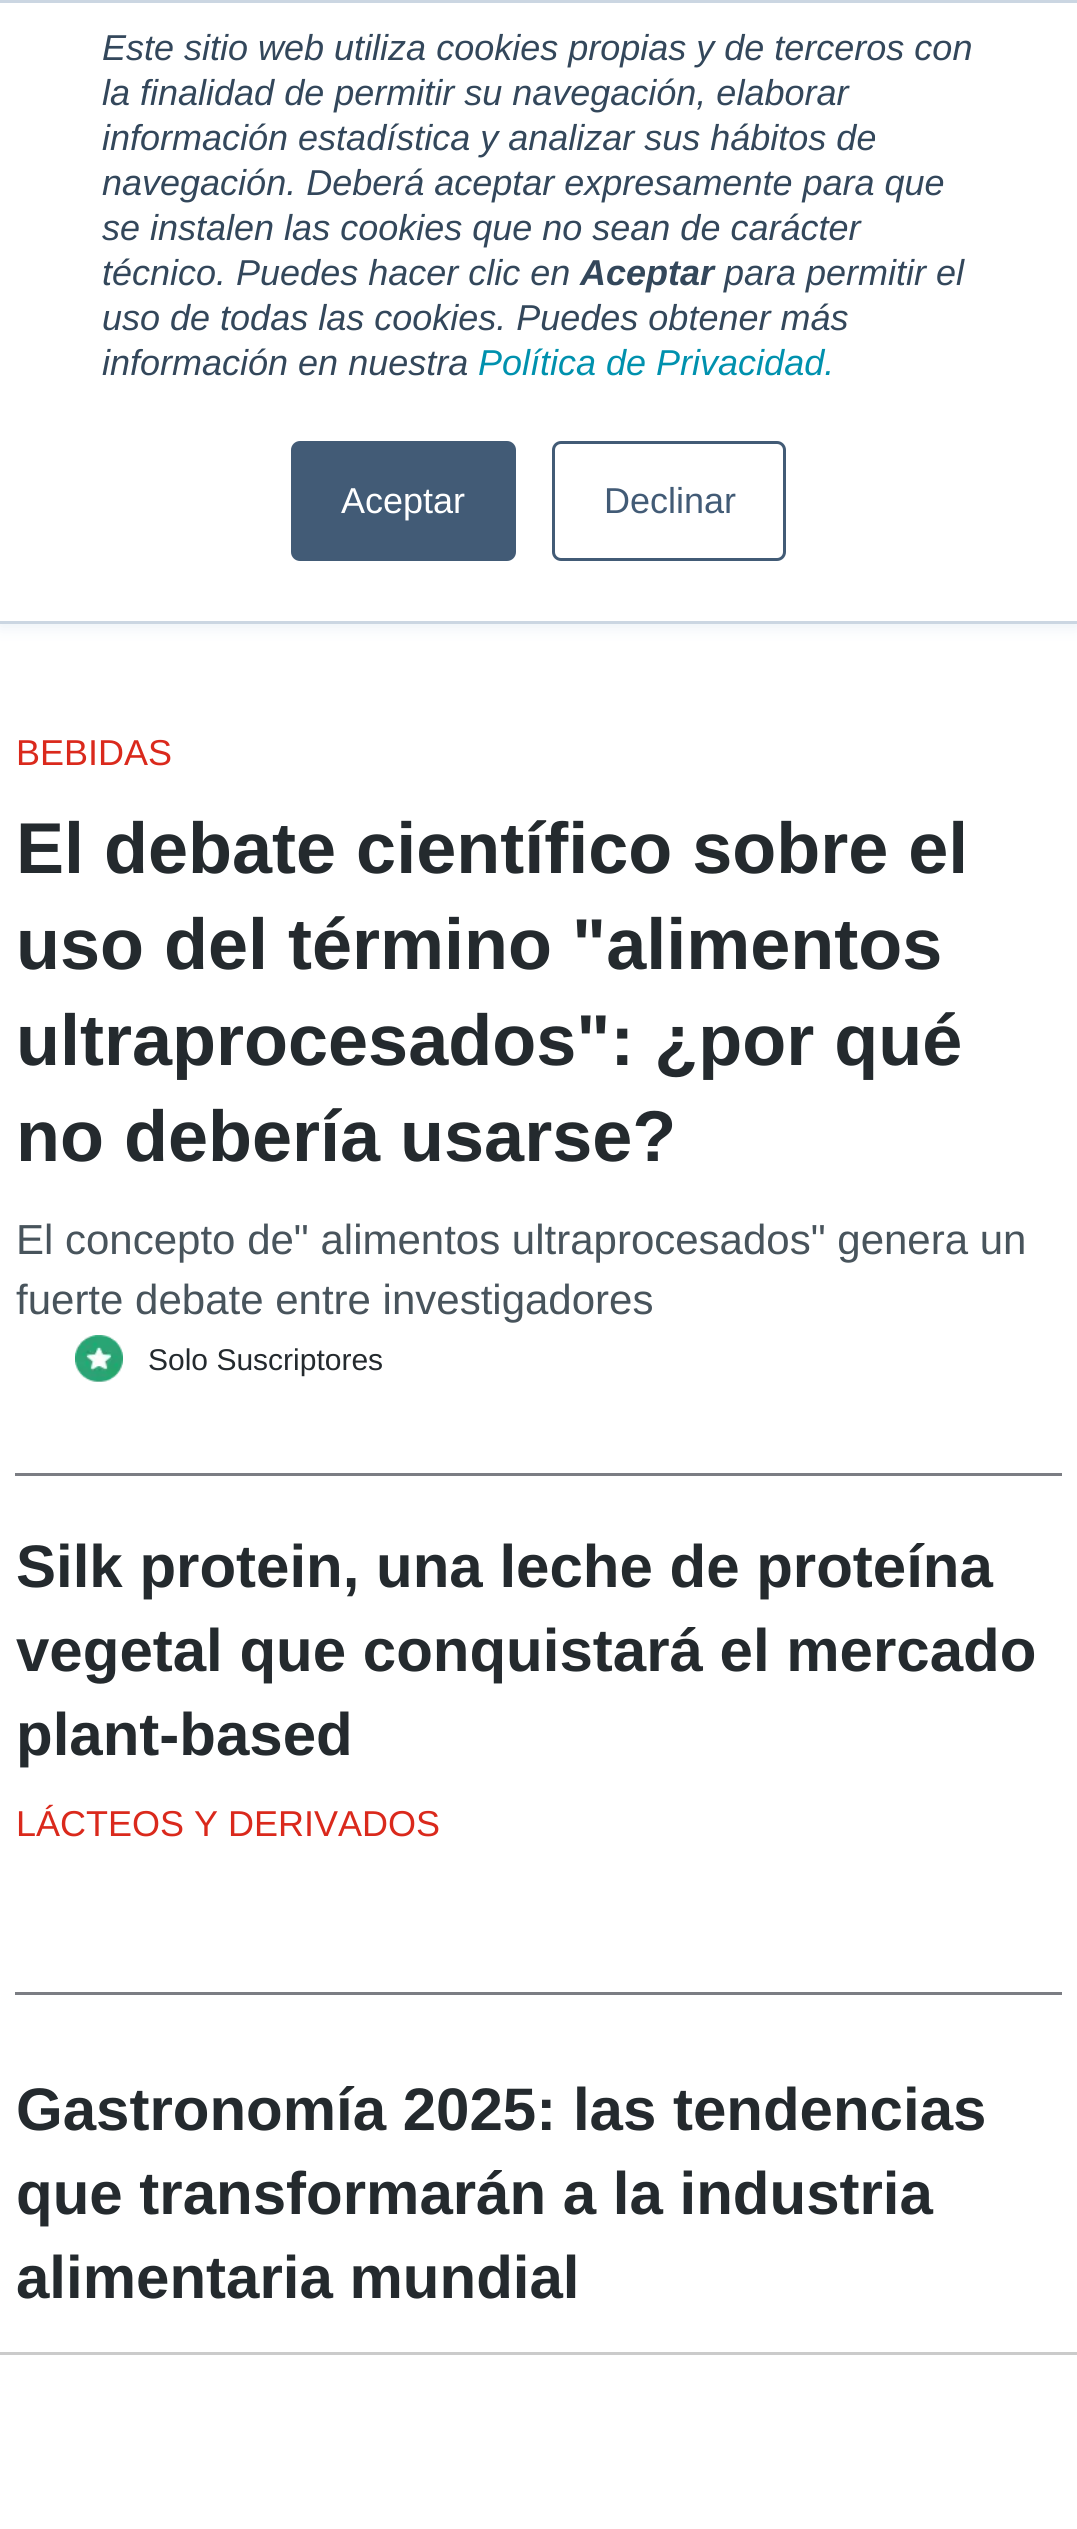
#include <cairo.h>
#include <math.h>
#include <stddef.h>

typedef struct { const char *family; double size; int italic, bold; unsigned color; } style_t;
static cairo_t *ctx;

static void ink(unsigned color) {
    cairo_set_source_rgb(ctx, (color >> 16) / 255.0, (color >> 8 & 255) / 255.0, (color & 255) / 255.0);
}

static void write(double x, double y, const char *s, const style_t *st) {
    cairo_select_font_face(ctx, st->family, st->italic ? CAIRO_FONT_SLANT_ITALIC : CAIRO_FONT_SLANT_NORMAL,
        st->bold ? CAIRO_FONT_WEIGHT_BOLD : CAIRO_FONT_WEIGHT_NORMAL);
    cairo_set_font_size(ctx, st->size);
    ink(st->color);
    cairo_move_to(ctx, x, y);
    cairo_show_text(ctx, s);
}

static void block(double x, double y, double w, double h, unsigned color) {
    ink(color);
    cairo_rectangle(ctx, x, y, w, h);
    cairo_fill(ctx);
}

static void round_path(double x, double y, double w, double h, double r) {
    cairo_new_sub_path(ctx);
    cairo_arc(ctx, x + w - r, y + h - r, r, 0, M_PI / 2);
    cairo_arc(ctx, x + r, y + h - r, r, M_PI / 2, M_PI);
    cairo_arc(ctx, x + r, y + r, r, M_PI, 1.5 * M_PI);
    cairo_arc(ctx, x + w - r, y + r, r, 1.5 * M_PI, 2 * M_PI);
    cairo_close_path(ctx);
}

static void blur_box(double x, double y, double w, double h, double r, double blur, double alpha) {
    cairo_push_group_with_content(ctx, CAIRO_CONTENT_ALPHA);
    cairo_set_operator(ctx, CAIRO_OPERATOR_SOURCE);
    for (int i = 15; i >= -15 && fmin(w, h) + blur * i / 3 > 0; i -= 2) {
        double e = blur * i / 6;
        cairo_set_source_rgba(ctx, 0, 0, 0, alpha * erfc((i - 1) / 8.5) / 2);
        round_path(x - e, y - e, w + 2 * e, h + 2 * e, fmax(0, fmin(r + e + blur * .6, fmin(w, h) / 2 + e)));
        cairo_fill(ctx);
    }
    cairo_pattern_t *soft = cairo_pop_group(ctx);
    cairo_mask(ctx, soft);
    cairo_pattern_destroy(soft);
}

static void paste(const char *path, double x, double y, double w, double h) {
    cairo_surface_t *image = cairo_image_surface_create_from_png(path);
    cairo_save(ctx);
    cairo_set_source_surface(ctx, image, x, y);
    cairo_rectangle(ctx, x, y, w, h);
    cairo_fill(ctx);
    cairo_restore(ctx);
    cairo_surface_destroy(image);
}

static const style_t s1 = {"Liberation Sans", 36, 1, 0, 0x33475b};
static const style_t s2 = {"Liberation Sans", 36, 1, 1, 0x33475b};
static const style_t s3 = {"Liberation Sans", 36, 1, 0, 0x0091ae};
static const style_t s4 = {"Liberation Sans", 36, 0, 0, 0xffffff};
static const style_t s5 = {"Liberation Sans", 36, 0, 0, 0x425b76};
static const style_t s6 = {"Liberation Sans", 36, 0, 0, 0xda291c};
static const style_t s7 = {"Liberation Sans", 72, 0, 1, 0x242a2e};
static const style_t s8 = {"Liberation Sans", 42, 0, 0, 0x48545c};
static const style_t s9 = {"Liberation Sans", 30, 0, 0, 0x242a2e};
static const style_t s10 = {"Liberation Sans", 60, 0, 1, 0x242a2e};

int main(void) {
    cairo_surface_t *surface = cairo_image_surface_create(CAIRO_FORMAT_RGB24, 1077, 2529);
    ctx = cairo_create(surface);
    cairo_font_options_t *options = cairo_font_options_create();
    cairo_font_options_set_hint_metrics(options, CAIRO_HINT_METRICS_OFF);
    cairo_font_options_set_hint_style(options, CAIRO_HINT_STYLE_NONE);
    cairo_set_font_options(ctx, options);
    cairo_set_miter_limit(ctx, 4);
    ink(0xffffff);
    cairo_paint(ctx);
    ink(0xeaf0f6);
    blur_box(0, 3, 1077, 624, 0, 7.5, 1);
    block(0, 3, 1077, 618, 0xffffff);
    block(0, 0, 1077, 3, 0xcbd6e2);
    block(0, 621, 1077, 3, 0xcbd6e2);
    write(102, 60, "Este sitio web utiliza cookies propias y de terceros con", &s1);
    write(102, 105, "la finalidad de permitir su navegación, elaborar", &s1);
    write(102, 150, "información estadística y analizar sus hábitos de", &s1);
    write(102, 195, "navegación. Deberá aceptar expresamente para que", &s1);
    write(102, 240, "se instalen las cookies que no sean de carácter", &s1);
    write(102, 285, "técnico. Puedes hacer clic en", &s1);
    write(580, 285, "Aceptar", &s2);
    write(724, 285, "para permitir el", &s1);
    write(102, 330, "uso de todas las cookies. Puedes obtener más", &s1);
    write(102, 375, "información en nuestra", &s1);
    write(478, 375, "Política de Privacidad.", &s3);
    ink(0x425b76);
    round_path(292.5, 442.5, 222, 117, 7.5);
    cairo_fill_preserve(ctx);
    cairo_set_line_width(ctx, 3);
    cairo_stroke(ctx);
    write(341, 513, "Aceptar", &s4);
    round_path(553.5, 442.5, 231, 117, 7.5);
    ink(0x425b76);
    cairo_stroke(ctx);
    write(604, 513, "Declinar", &s5);
    block(15, 1473, 1047, 3, 0x7b7d83);
    write(16, 765, "BEBIDAS", &s6);
    write(16, 873, "El debate científico sobre el", &s7);
    write(16, 969, "uso del término \"alimentos", &s7);
    write(16, 1065, "ultraprocesados\": ¿por qué", &s7);
    write(16, 1161, "no debería usarse?", &s7);
    write(16, 1254, "El concepto de\" alimentos ultraprocesados\" genera un", &s8);
    write(16, 1314, "fuerte debate entre investigadores", &s8);
    paste("pic1.png", 75, 1335, 48, 47);
    write(148, 1370, "Solo Suscriptores", &s9);
    block(15, 1992, 1047, 3, 0x7b7d83);
    write(16, 1587, "Silk protein, una leche de proteína", &s10);
    write(16, 1671, "vegetal que conquistará el mercado", &s10);
    write(16, 1755, "plant-based", &s10);
    write(16, 1836, "LÁCTEOS Y DERIVADOS", &s6);
    write(16, 2130, "Gastronomía 2025: las tendencias", &s10);
    write(16, 2214, "que transformarán a la industria", &s10);
    write(16, 2298, "alimentaria mundial", &s10);
    block(0, 2352, 1077, 3, 0xcbcbcb);
    cairo_surface_write_to_png(surface, "screenshot.png");
    cairo_font_options_destroy(options);
    cairo_destroy(ctx);
    cairo_surface_destroy(surface);
    return 0;
}
